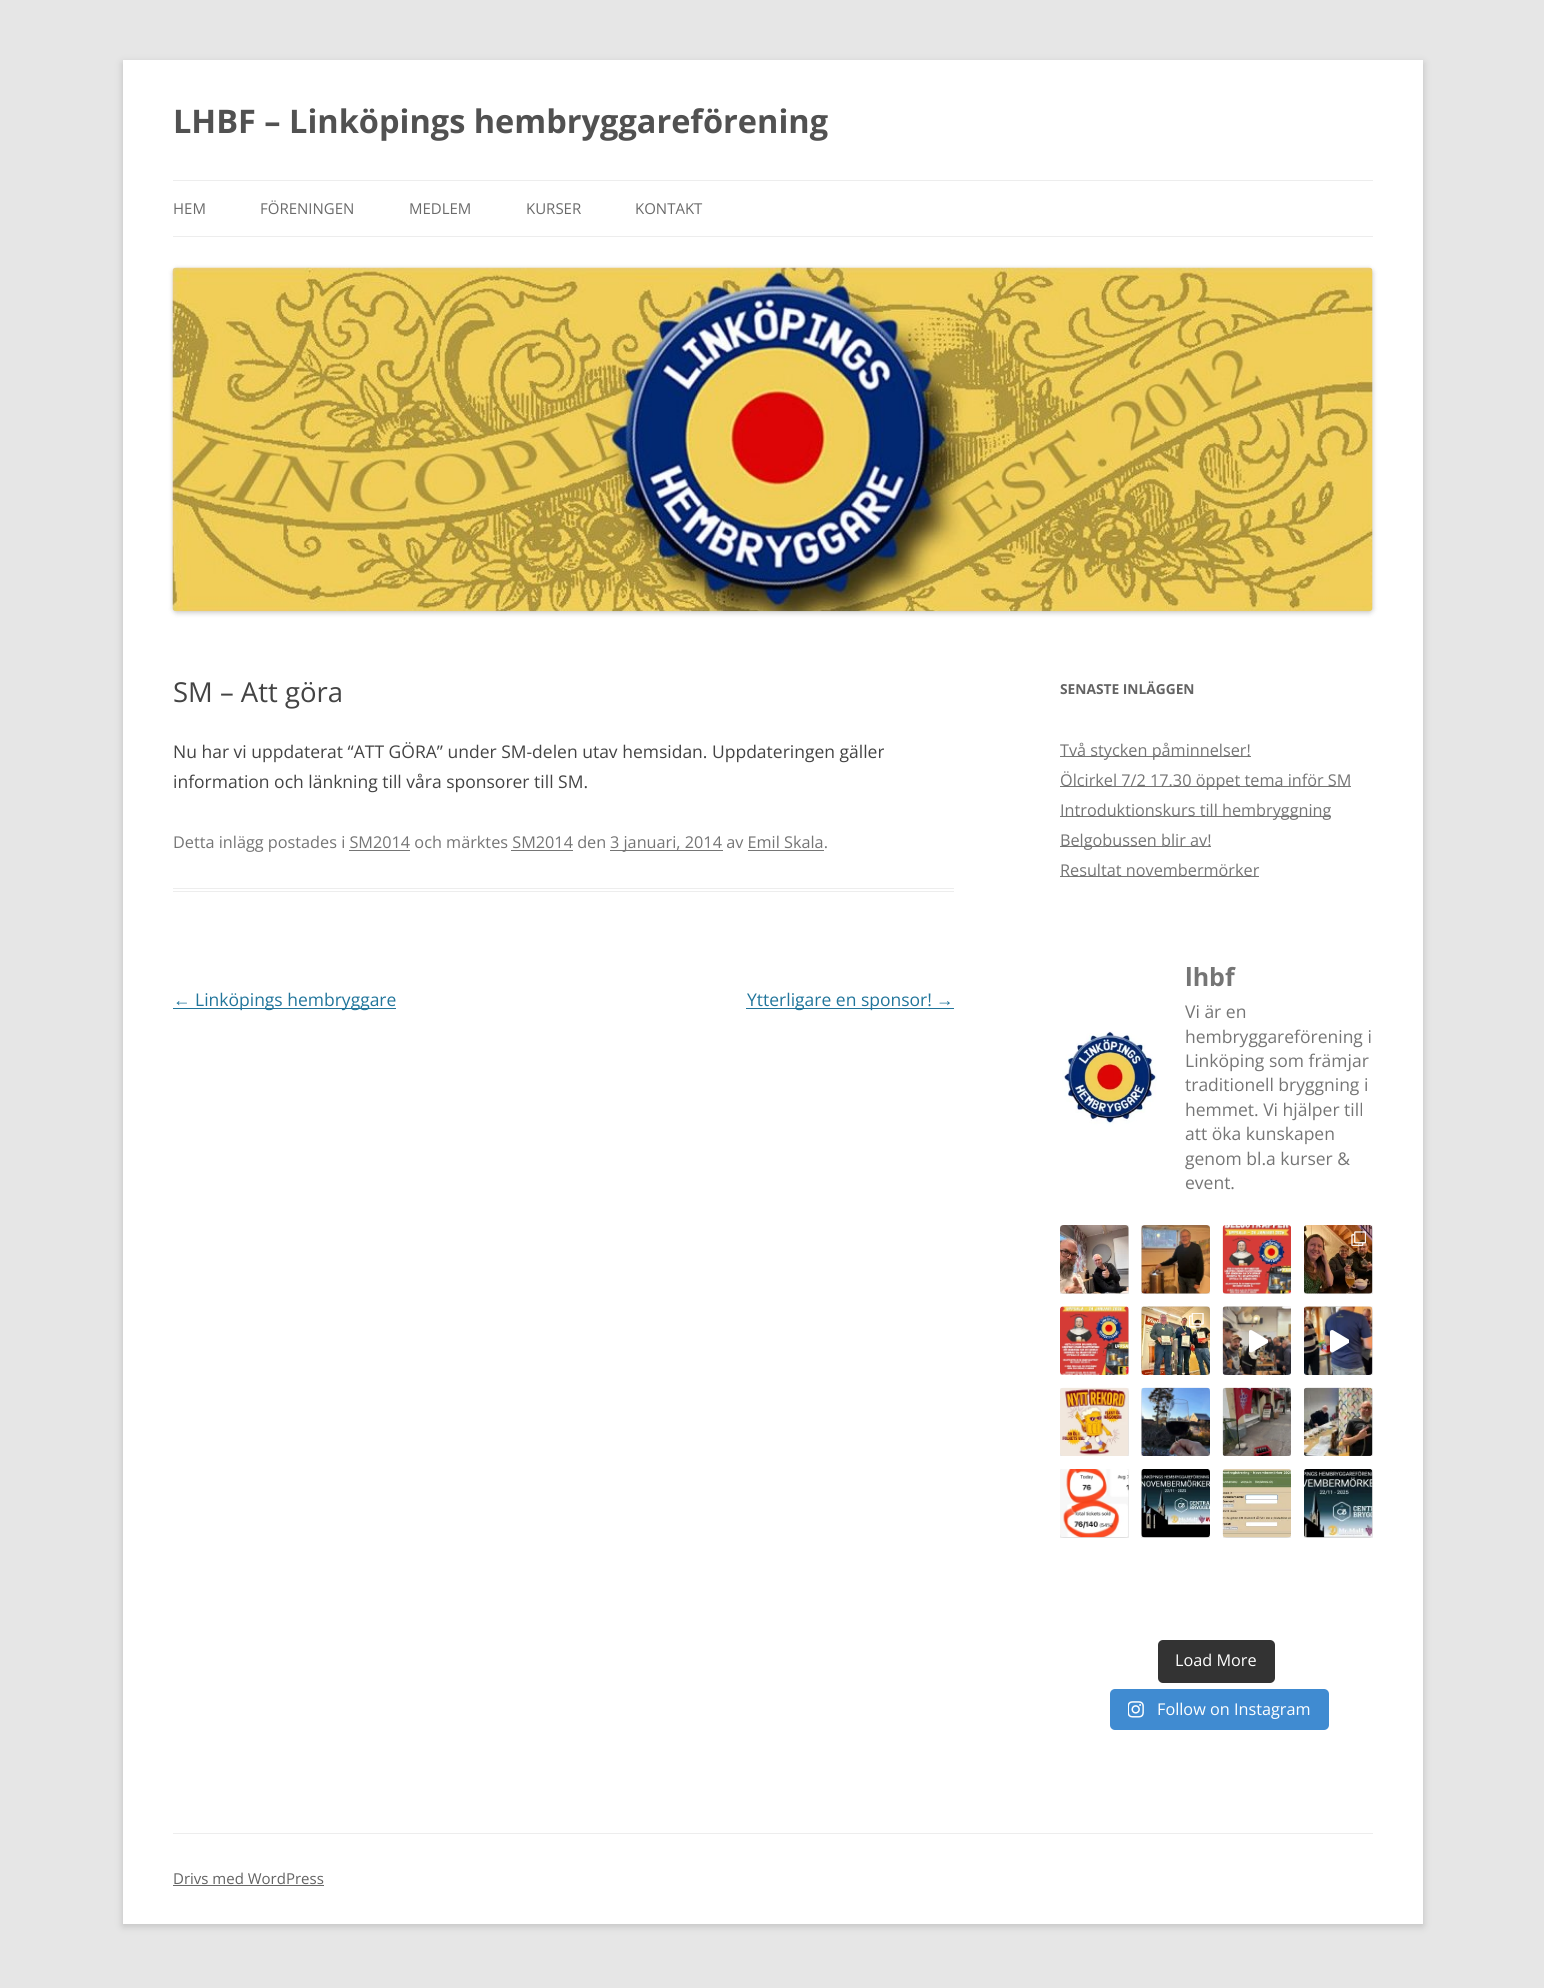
#include <cairo.h>
#include <math.h>
#include <stddef.h>

typedef struct { const char *family; double size; int italic, bold; unsigned color; } style_t;
static cairo_t *ctx;

static void ink(unsigned color) {
    cairo_set_source_rgb(ctx, (color >> 16) / 255.0, (color >> 8 & 255) / 255.0, (color & 255) / 255.0);
}

static void write(double x, double y, const char *s, const style_t *st) {
    cairo_select_font_face(ctx, st->family, st->italic ? CAIRO_FONT_SLANT_ITALIC : CAIRO_FONT_SLANT_NORMAL,
        st->bold ? CAIRO_FONT_WEIGHT_BOLD : CAIRO_FONT_WEIGHT_NORMAL);
    cairo_set_font_size(ctx, st->size);
    ink(st->color);
    cairo_move_to(ctx, x, y);
    cairo_show_text(ctx, s);
}

static void block(double x, double y, double w, double h, unsigned color) {
    ink(color);
    cairo_rectangle(ctx, x, y, w, h);
    cairo_fill(ctx);
}

static void round_path(double x, double y, double w, double h, double r) {
    cairo_new_sub_path(ctx);
    cairo_arc(ctx, x + w - r, y + h - r, r, 0, M_PI / 2);
    cairo_arc(ctx, x + r, y + h - r, r, M_PI / 2, M_PI);
    cairo_arc(ctx, x + r, y + r, r, M_PI, 1.5 * M_PI);
    cairo_arc(ctx, x + w - r, y + r, r, 1.5 * M_PI, 2 * M_PI);
    cairo_close_path(ctx);
}

static void blur_box(double x, double y, double w, double h, double r, double blur, double alpha) {
    cairo_push_group_with_content(ctx, CAIRO_CONTENT_ALPHA);
    cairo_set_operator(ctx, CAIRO_OPERATOR_SOURCE);
    for (int i = 15; i >= -15 && fmin(w, h) + blur * i / 3 > 0; i -= 2) {
        double e = blur * i / 6;
        cairo_set_source_rgba(ctx, 0, 0, 0, alpha * erfc((i - 1) / 8.5) / 2);
        round_path(x - e, y - e, w + 2 * e, h + 2 * e, fmax(0, fmin(r + e + blur * .6, fmin(w, h) / 2 + e)));
        cairo_fill(ctx);
    }
    cairo_pattern_t *soft = cairo_pop_group(ctx);
    cairo_mask(ctx, soft);
    cairo_pattern_destroy(soft);
}

static void paste(const char *path, double x, double y, double w, double h) {
    cairo_surface_t *image = cairo_image_surface_create_from_png(path);
    cairo_save(ctx);
    cairo_set_source_surface(ctx, image, x, y);
    cairo_rectangle(ctx, x, y, w, h);
    cairo_fill(ctx);
    cairo_restore(ctx);
    cairo_surface_destroy(image);
}

static const style_t s1 = {"Open Sans", 32.5, 0, 1, 0x515151};
static const style_t s2 = {"Open Sans", 15, 0, 0, 0x6a6a6a};
static const style_t s3 = {"Open Sans", 27.5, 0, 0, 0x444444};
static const style_t s4 = {"Open Sans", 17.5, 0, 0, 0x444444};
static const style_t s5 = {"Open Sans", 16.25, 0, 0, 0x757575};
static const style_t s6 = {"Liberation Sans", 17.5, 0, 0, 0x21759b};
static const style_t s7 = {"Open Sans", 17.5, 0, 0, 0x21759b};
static const style_t s8 = {"Open Sans", 13.75, 0, 1, 0x636363};
static const style_t s9 = {"Open Sans", 25, 0, 1, 0x757575};
static const style_t s10 = {"Open Sans", 17.5, 0, 0, 0x757575};
static const style_t s11 = {"Open Sans", 16.25, 0, 0, 0xffffff};
static const style_t s12 = {"Open Sans", 15, 0, 0, 0x636363};

int main(void) {
    cairo_surface_t *surface = cairo_image_surface_create(CAIRO_FORMAT_RGB24, 1544, 1988);
    ctx = cairo_create(surface);
    cairo_font_options_t *options = cairo_font_options_create();
    cairo_font_options_set_hint_metrics(options, CAIRO_HINT_METRICS_OFF);
    cairo_font_options_set_hint_style(options, CAIRO_HINT_STYLE_NONE);
    cairo_set_font_options(ctx, options);
    cairo_set_miter_limit(ctx, 4);
    ink(0xe6e6e6);
    cairo_paint(ctx);
    ink(0x646464);
    blur_box(123, 63, 1300, 1863, 0, 4, 0.3);
    block(123, 60, 1300, 1864, 0xffffff);
    write(173, 133, "LHBF – Linköpings hembryggareförening", &s1);
    block(173, 180, 1200, 1, 0xededed);
    block(173, 236, 1200, 1, 0xededed);
    write(173, 214, "HEM", &s2);
    write(260, 214, "FÖRENINGEN", &s2);
    write(409, 214, "MEDLEM", &s2);
    write(526, 214, "KURSER", &s2);
    write(635, 214, "KONTAKT", &s2);
    ink(0x000000);
    blur_box(173, 269, 1200, 344, 4, 2.5, 0.2);
    paste("pic1.png", 172, 267, 1201, 345);
    block(173, 888, 781, 1, 0xededed);
    block(173, 891, 781, 1, 0xededed);
    write(173, 702, "SM – Att göra", &s3);
    write(173, 758, "Nu har vi uppdaterat “ATT GÖRA” under SM-delen utav hemsidan. Uppdateringen gäller", &s4);
    write(173, 788, "information och länkning till våra sponsorer till SM.", &s4);
    write(173, 848, "Detta inlägg postades i SM2014 och märktes SM2014 den", &s5);
    block(610, 850, 113, 1, 0x757575);
    write(610, 848, "3 januari, 2014 av Emil Skala.", &s5);
    block(349, 850, 61, 1, 0x757575);
    block(511, 850, 62, 1, 0x757575);
    block(748, 850, 76, 1, 0x757575);
    write(173, 1006, "←", &s6);
    block(173, 1008, 223, 1, 0x21759b);
    write(195, 1006, "Linköpings hembryggare", &s7);
    block(746, 1008, 208, 1, 0x21759b);
    write(747, 1006, "Ytterligare en sponsor!", &s7);
    write(936, 1006, "→", &s6);
    write(1060, 694, "SENASTE INLÄGGEN", &s8);
    block(1060, 756, 191, 1, 0x757575);
    write(1060, 756, "Två stycken påminnelser!", &s5);
    block(1060, 786, 291, 1, 0x757575);
    write(1060, 786, "Ölcirkel 7/2 17.30 öppet tema inför SM", &s5);
    block(1060, 816, 271, 1, 0x757575);
    write(1060, 816, "Introduktionskurs till hembryggning", &s5);
    block(1060, 846, 151, 1, 0x757575);
    write(1060, 846, "Belgobussen blir av!", &s5);
    block(1060, 876, 199, 1, 0x757575);
    write(1060, 876, "Resultat novembermörker", &s5);
    cairo_save(ctx);
    round_path(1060, 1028, 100, 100, 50);
    cairo_clip(ctx);
    cairo_set_fill_rule(ctx, CAIRO_FILL_RULE_EVEN_ODD);
    cairo_new_path(ctx);
    cairo_move_to(ctx, 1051, 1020);
    cairo_line_to(ctx, 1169, 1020);
    cairo_line_to(ctx, 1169, 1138);
    cairo_line_to(ctx, 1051, 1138);
    cairo_close_path(ctx);
    cairo_move_to(ctx, 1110, 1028);
    cairo_curve_to(ctx, 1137.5, 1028, 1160, 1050.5, 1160, 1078);
    cairo_curve_to(ctx, 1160, 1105.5, 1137.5, 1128, 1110, 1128);
    cairo_curve_to(ctx, 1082.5, 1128, 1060, 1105.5, 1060, 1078);
    cairo_curve_to(ctx, 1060, 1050.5, 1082.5, 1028, 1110, 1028);
    cairo_close_path(ctx);
    cairo_clip(ctx);
    ink(0x000000);
    blur_box(1060, 1029, 100, 100, 50, 2.5, 0.2);
    cairo_restore(ctx);
    paste("pic2.png", 1062, 1031, 95, 96);
    write(1185, 986, "lhbf", &s9);
    write(1185, 1018, "Vi är en", &s10);
    write(1185, 1043, "hembryggareförening i", &s10);
    write(1185, 1067, "Linköping som främjar", &s10);
    write(1185, 1091, "traditionell bryggning i", &s10);
    write(1185, 1116, "hemmet. Vi hjälper till", &s10);
    write(1185, 1140, "att öka kunskapen", &s10);
    write(1185, 1165, "genom bl.a kurser &", &s10);
    write(1185, 1189, "event.", &s10);
    cairo_save(ctx);
    cairo_rectangle(ctx, 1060, 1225, 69, 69);
    cairo_clip(ctx);
    ink(0x000000);
    blur_box(1060, 1226, 69, 69, 4, 2.5, 0.2);
    cairo_restore(ctx);
    paste("pic3.png", 1060, 1225, 69, 69);
    cairo_save(ctx);
    cairo_rectangle(ctx, 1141, 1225, 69, 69);
    cairo_clip(ctx);
    ink(0x000000);
    blur_box(1141, 1226, 69, 69, 4, 2.5, 0.2);
    cairo_restore(ctx);
    paste("pic4.png", 1141, 1225, 69, 69);
    cairo_save(ctx);
    cairo_rectangle(ctx, 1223, 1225, 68, 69);
    cairo_clip(ctx);
    ink(0x000000);
    blur_box(1223, 1226, 68, 69, 4, 2.5, 0.2);
    cairo_restore(ctx);
    paste("pic5.png", 1222, 1225, 69, 69);
    cairo_save(ctx);
    cairo_rectangle(ctx, 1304, 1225, 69, 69);
    cairo_clip(ctx);
    ink(0x000000);
    blur_box(1304, 1226, 69, 69, 4, 2.5, 0.2);
    cairo_restore(ctx);
    paste("pic6.png", 1304, 1225, 69, 69);
    paste("pic7.png", 1351, 1231, 15, 15);
    cairo_save(ctx);
    cairo_rectangle(ctx, 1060, 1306, 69, 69);
    cairo_clip(ctx);
    ink(0x000000);
    blur_box(1060, 1308, 69, 68, 4, 2.5, 0.2);
    cairo_restore(ctx);
    paste("pic8.png", 1060, 1306, 69, 69);
    cairo_save(ctx);
    cairo_rectangle(ctx, 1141, 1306, 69, 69);
    cairo_clip(ctx);
    ink(0x000000);
    blur_box(1141, 1308, 69, 68, 4, 2.5, 0.2);
    cairo_restore(ctx);
    paste("pic9.png", 1141, 1306, 69, 69);
    paste("pic10.png", 1189, 1313, 15, 15);
    cairo_save(ctx);
    cairo_rectangle(ctx, 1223, 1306, 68, 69);
    cairo_clip(ctx);
    ink(0x000000);
    blur_box(1223, 1308, 68, 68, 4, 2.5, 0.2);
    cairo_restore(ctx);
    paste("pic11.png", 1222, 1306, 69, 69);
    paste("pic12.png", 1249, 1330, 19, 23);
    cairo_save(ctx);
    cairo_rectangle(ctx, 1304, 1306, 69, 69);
    cairo_clip(ctx);
    ink(0x000000);
    blur_box(1304, 1308, 69, 68, 4, 2.5, 0.2);
    cairo_restore(ctx);
    paste("pic13.png", 1304, 1306, 69, 69);
    paste("pic14.png", 1330, 1330, 19, 23);
    cairo_save(ctx);
    cairo_rectangle(ctx, 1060, 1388, 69, 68);
    cairo_clip(ctx);
    ink(0x000000);
    blur_box(1060, 1389, 69, 69, 4, 2.5, 0.2);
    cairo_restore(ctx);
    paste("pic15.png", 1060, 1387, 69, 69);
    cairo_save(ctx);
    cairo_rectangle(ctx, 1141, 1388, 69, 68);
    cairo_clip(ctx);
    ink(0x000000);
    blur_box(1141, 1389, 69, 69, 4, 2.5, 0.2);
    cairo_restore(ctx);
    paste("pic16.png", 1141, 1387, 69, 69);
    cairo_save(ctx);
    cairo_rectangle(ctx, 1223, 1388, 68, 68);
    cairo_clip(ctx);
    ink(0x000000);
    blur_box(1223, 1389, 68, 69, 4, 2.5, 0.2);
    cairo_restore(ctx);
    paste("pic17.png", 1222, 1387, 69, 69);
    cairo_save(ctx);
    cairo_rectangle(ctx, 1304, 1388, 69, 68);
    cairo_clip(ctx);
    ink(0x000000);
    blur_box(1304, 1389, 69, 69, 4, 2.5, 0.2);
    cairo_restore(ctx);
    paste("pic18.png", 1304, 1387, 69, 69);
    cairo_save(ctx);
    cairo_rectangle(ctx, 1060, 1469, 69, 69);
    cairo_clip(ctx);
    ink(0x000000);
    blur_box(1060, 1470, 69, 69, 4, 2.5, 0.2);
    cairo_restore(ctx);
    paste("pic19.png", 1060, 1469, 69, 69);
    cairo_save(ctx);
    cairo_rectangle(ctx, 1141, 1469, 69, 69);
    cairo_clip(ctx);
    ink(0x000000);
    blur_box(1141, 1470, 69, 69, 4, 2.5, 0.2);
    cairo_restore(ctx);
    paste("pic20.png", 1141, 1469, 69, 69);
    cairo_save(ctx);
    cairo_rectangle(ctx, 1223, 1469, 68, 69);
    cairo_clip(ctx);
    ink(0x000000);
    blur_box(1223, 1470, 68, 69, 4, 2.5, 0.2);
    cairo_restore(ctx);
    paste("pic21.png", 1222, 1469, 69, 69);
    cairo_save(ctx);
    cairo_rectangle(ctx, 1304, 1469, 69, 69);
    cairo_clip(ctx);
    ink(0x000000);
    blur_box(1304, 1470, 69, 69, 4, 2.5, 0.2);
    cairo_restore(ctx);
    paste("pic22.png", 1304, 1469, 69, 69);
    ink(0x333333);
    round_path(1158, 1640, 117, 43, 5);
    cairo_fill(ctx);
    write(1175, 1666, "Load More", &s11);
    ink(0x408bd1);
    round_path(1110, 1689, 219, 41, 5);
    cairo_fill(ctx);
    paste("pic23.png", 1128, 1701, 16, 17);
    write(1157, 1715, "Follow on Instagram", &s11);
    block(173, 1833, 1200, 1, 0xededed);
    write(173, 1884, "Drivs med WordPress", &s12);
    block(173, 1885, 151, 1, 0x686868);
    cairo_surface_write_to_png(surface, "screenshot.png");
    cairo_font_options_destroy(options);
    cairo_destroy(ctx);
    cairo_surface_destroy(surface);
    return 0;
}
